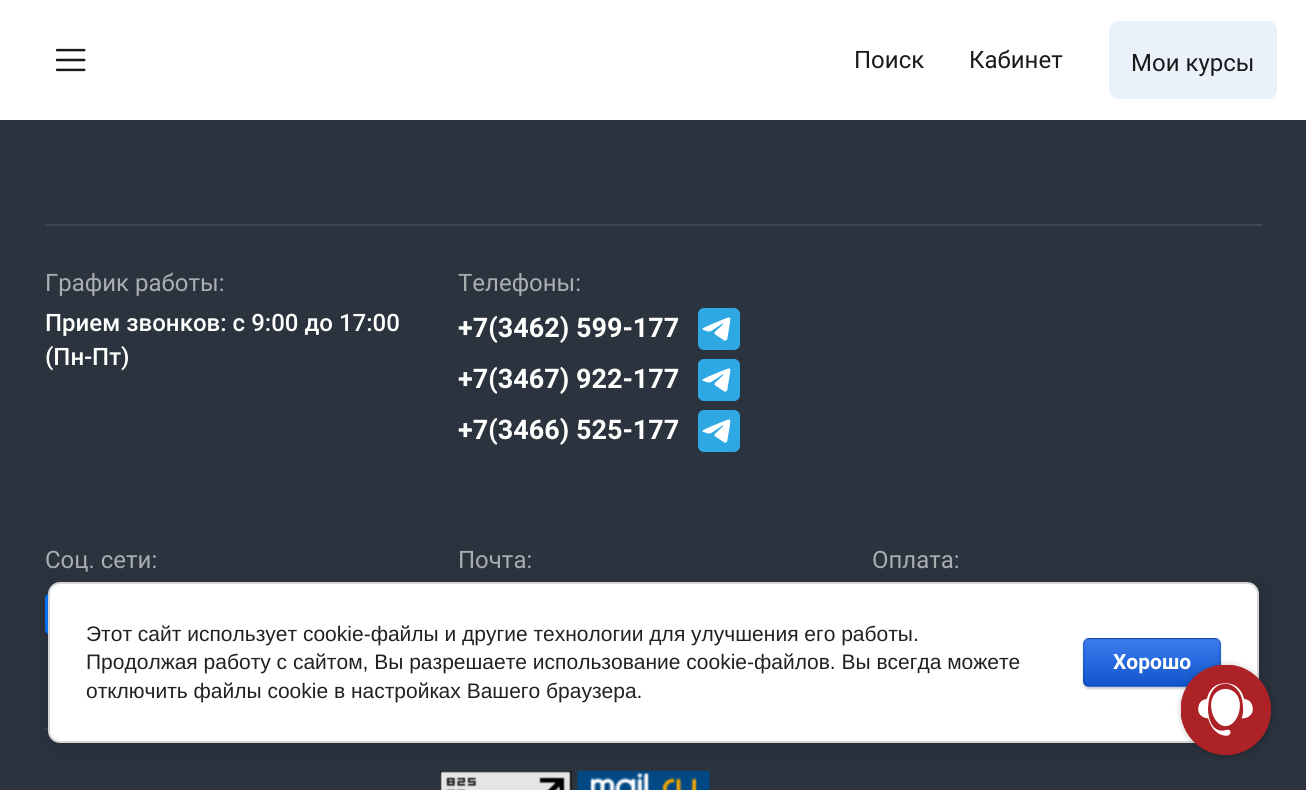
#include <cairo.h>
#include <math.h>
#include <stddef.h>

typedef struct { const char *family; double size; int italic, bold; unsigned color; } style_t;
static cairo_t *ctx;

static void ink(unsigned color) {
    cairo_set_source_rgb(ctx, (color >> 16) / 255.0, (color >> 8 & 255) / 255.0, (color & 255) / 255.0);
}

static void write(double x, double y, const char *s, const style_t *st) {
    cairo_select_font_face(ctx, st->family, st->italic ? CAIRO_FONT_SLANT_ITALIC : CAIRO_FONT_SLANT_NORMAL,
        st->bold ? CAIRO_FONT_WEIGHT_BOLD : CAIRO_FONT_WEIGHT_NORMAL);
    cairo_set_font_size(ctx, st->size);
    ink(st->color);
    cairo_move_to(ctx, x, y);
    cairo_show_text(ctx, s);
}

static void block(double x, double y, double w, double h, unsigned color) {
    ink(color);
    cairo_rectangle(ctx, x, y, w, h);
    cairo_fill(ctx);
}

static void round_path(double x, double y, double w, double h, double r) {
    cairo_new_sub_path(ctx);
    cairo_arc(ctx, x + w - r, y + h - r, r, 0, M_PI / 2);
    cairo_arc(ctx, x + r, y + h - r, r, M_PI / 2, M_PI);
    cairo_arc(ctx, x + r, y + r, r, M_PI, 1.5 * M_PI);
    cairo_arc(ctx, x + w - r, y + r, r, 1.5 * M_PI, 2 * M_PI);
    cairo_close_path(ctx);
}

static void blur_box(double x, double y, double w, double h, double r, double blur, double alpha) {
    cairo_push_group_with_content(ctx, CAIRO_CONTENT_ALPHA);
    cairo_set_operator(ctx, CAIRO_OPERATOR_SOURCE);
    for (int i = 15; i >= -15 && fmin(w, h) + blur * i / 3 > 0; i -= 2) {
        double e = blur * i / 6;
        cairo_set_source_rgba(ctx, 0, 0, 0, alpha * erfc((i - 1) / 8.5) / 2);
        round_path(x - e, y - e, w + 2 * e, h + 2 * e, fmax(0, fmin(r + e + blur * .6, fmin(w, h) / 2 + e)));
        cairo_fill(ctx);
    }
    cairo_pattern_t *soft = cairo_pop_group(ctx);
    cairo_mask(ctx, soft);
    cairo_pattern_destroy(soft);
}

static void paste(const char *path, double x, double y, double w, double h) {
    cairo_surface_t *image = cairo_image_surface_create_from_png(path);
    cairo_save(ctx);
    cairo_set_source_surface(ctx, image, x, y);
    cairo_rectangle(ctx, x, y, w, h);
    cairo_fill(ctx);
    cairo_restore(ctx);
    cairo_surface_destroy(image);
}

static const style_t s1 = {"Roboto", 24, 0, 0, 0x1a1a1a};
static const style_t s2 = {"Roboto", 24, 0, 0, 0xaaadb1};
static const style_t s3 = {"Roboto Medium", 24, 0, 0, 0xfffffe};
static const style_t s4 = {"Roboto", 27, 0, 1, 0xfffffe};
static const style_t s5 = {"Liberation Sans", 21, 0, 0, 0x212121};
static const style_t s6 = {"Roboto", 21, 0, 1, 0xfffffe};

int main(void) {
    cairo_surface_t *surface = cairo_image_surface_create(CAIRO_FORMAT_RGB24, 1306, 790);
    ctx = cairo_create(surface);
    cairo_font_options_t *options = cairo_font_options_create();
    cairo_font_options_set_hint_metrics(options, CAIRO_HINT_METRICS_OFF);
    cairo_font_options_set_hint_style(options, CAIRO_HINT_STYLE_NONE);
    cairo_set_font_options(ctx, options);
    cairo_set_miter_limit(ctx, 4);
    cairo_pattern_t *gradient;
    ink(0x2a333e);
    cairo_paint(ctx);
    block(0, 0, 1306, 120, 0xffffff);
    paste("pic1.png", 56, 48, 30, 24);
    write(854, 68, "Поиск", &s1);
    write(969, 68, "Кабинет", &s1);
    ink(0xeaf1fb);
    round_path(1109, 21, 168, 78, 9);
    cairo_fill(ctx);
    write(1131, 71, "Мои курсы", &s1);
    block(45, 224, 1217, 2, 0x3f4751);
    write(45, 291, "График работы:", &s2);
    write(45, 331, "Прием звонков: с 9:00 до 17:00", &s3);
    write(45, 365, "(Пн-Пт)", &s3);
    write(458, 291, "Телефоны:", &s2);
    write(458, 337, "+7(3462) 599-177", &s4);
    paste("pic2.png", 698, 308, 42, 42);
    write(458, 388, "+7(3467) 922-177", &s4);
    paste("pic2.png", 698, 359, 42, 42);
    write(458, 439, "+7(3466) 525-177", &s4);
    paste("pic2.png", 698, 410, 42, 42);
    block(45, 728, 3, 2, 0x3f4751);
    write(45, 568, "Соц. сети:", &s2);
    paste("pic3.png", 45, 593, 4, 42);
    write(458, 568, "Почта:", &s2);
    write(872, 568, "Оплата:", &s2);
    paste("pic4.png", 440, 771, 132, 19);
    paste("pic5.png", 577, 771, 133, 19);
    ink(0x000000);
    blur_box(51, 585, 1211, 161, 12, 13.5, 0.14);
    ink(0xffffff);
    round_path(49, 583, 1209, 159, 11);
    cairo_fill_preserve(ctx);
    ink(0xd6d6d6);
    cairo_stroke(ctx);
    write(86, 641, "Этот сайт использует cookie-файлы и другие технологии для улучшения его работы.", &s5);
    write(86, 669, "Продолжая работу с сайтом, Вы разрешаете использование cookie-файлов. Вы всегда можете", &s5);
    write(86, 698, "отключить файлы cookie в настройках Вашего браузера.", &s5);
    ink(0x000000);
    blur_box(1083, 639, 138, 50, 6, 1, 0.2);
    cairo_save(ctx);
    round_path(1083, 638, 138, 49, 6);
    cairo_clip(ctx);
    gradient = cairo_pattern_create_linear(1152, 593, 1152, 639);
    cairo_pattern_add_color_stop_rgba(gradient, 0, 0.231, 0.486, 0.937, 1);
    cairo_pattern_add_color_stop_rgba(gradient, 1, 0.067, 0.333, 0.8, 1);
    cairo_set_source(ctx, gradient);
    cairo_pattern_destroy(gradient);
    cairo_rectangle(ctx, 1083, 638, 138, 1);
    cairo_fill(ctx);
    gradient = cairo_pattern_create_linear(1152, 639, 1152, 686);
    cairo_pattern_add_color_stop_rgba(gradient, 0, 0.231, 0.486, 0.937, 1);
    cairo_pattern_add_color_stop_rgba(gradient, 1, 0.067, 0.333, 0.8, 1);
    cairo_set_source(ctx, gradient);
    cairo_pattern_destroy(gradient);
    cairo_rectangle(ctx, 1083, 639, 138, 47);
    cairo_fill(ctx);
    gradient = cairo_pattern_create_linear(1152, 686, 1152, 732);
    cairo_pattern_add_color_stop_rgba(gradient, 0, 0.231, 0.486, 0.937, 1);
    cairo_pattern_add_color_stop_rgba(gradient, 1, 0.067, 0.333, 0.8, 1);
    cairo_set_source(ctx, gradient);
    cairo_pattern_destroy(gradient);
    cairo_rectangle(ctx, 1083, 686, 105, 1);
    cairo_fill(ctx);
    cairo_restore(ctx);
    round_path(1084, 639, 136, 47, 5);
    cairo_set_source_rgba(ctx, 0, 0, 0, 0.1);
    cairo_stroke(ctx);
    write(1113, 669, "Хорошо", &s6);
    ink(0x000000);
    blur_box(1181, 665, 90, 90, 45, 3, 0.25);
    ink(0xac2226);
    cairo_arc(ctx, 1226, 710, 45, 0, 2 * M_PI);
    cairo_fill(ctx);
    cairo_set_source_rgba(ctx, 0.675, 0.133, 0.149, 0.6);
    cairo_arc(ctx, 1226, 710, 45, 0, 2 * M_PI);
    cairo_fill(ctx);
    paste("pic6.png", 1181, 665, 90, 90);
    cairo_surface_write_to_png(surface, "screenshot.png");
    cairo_font_options_destroy(options);
    cairo_destroy(ctx);
    cairo_surface_destroy(surface);
    return 0;
}
